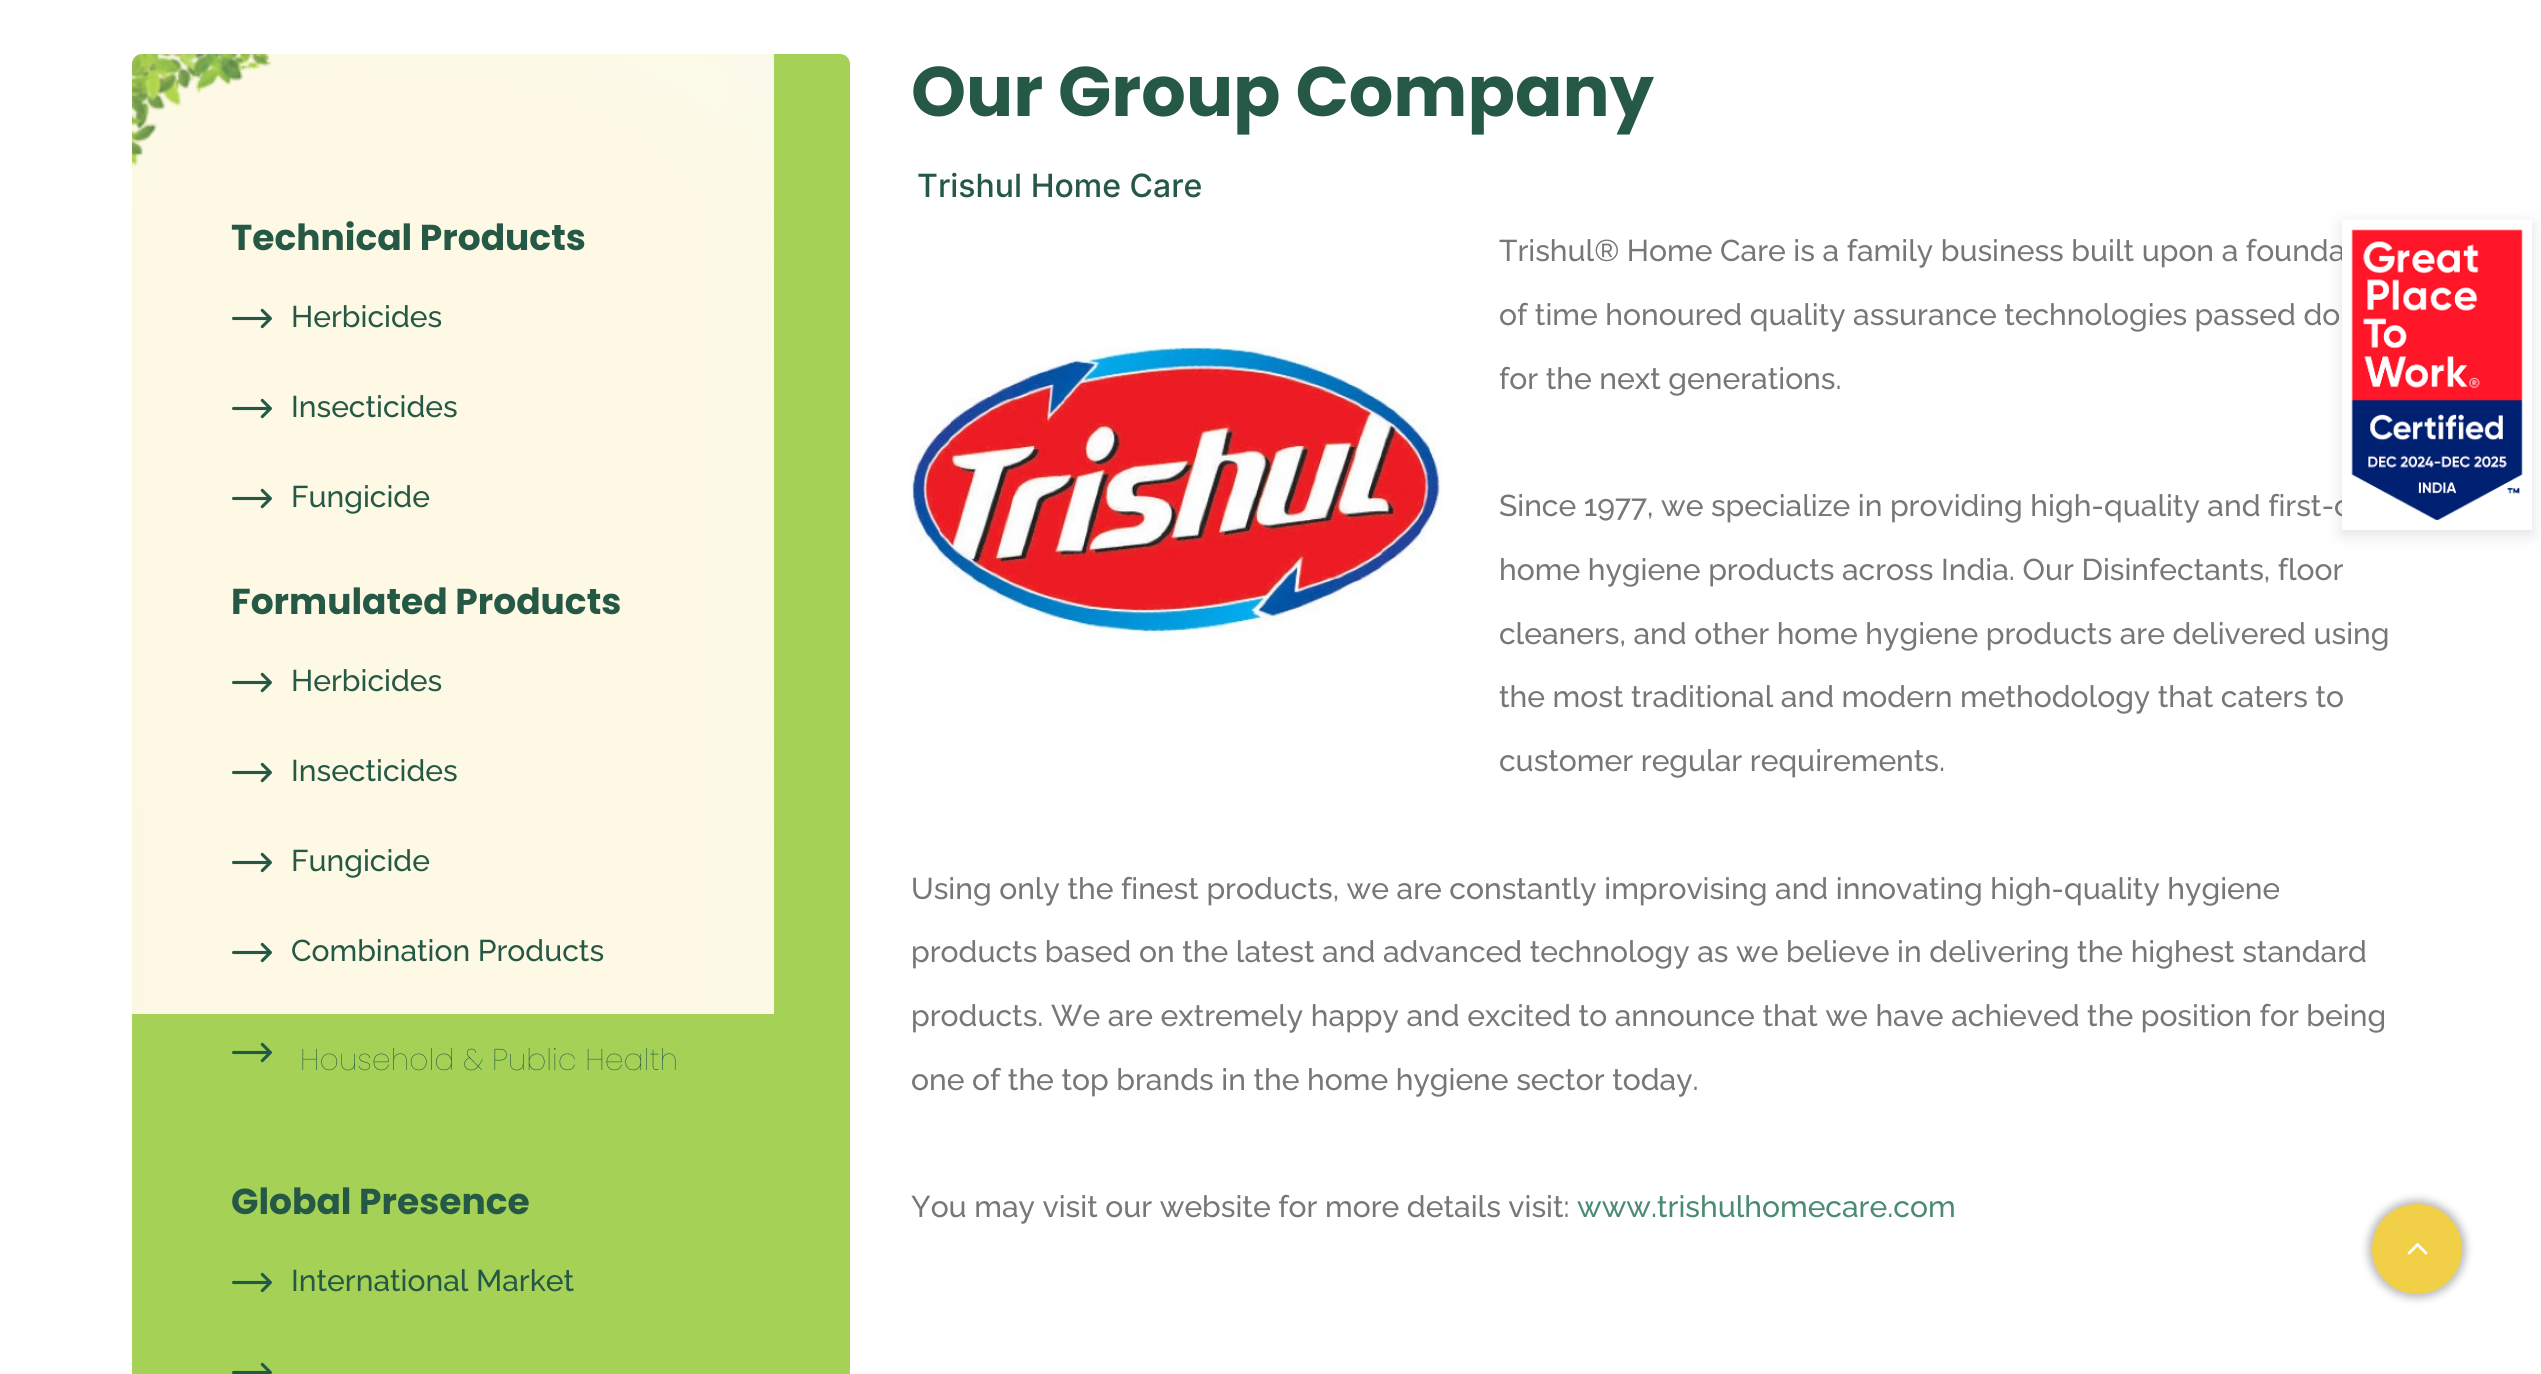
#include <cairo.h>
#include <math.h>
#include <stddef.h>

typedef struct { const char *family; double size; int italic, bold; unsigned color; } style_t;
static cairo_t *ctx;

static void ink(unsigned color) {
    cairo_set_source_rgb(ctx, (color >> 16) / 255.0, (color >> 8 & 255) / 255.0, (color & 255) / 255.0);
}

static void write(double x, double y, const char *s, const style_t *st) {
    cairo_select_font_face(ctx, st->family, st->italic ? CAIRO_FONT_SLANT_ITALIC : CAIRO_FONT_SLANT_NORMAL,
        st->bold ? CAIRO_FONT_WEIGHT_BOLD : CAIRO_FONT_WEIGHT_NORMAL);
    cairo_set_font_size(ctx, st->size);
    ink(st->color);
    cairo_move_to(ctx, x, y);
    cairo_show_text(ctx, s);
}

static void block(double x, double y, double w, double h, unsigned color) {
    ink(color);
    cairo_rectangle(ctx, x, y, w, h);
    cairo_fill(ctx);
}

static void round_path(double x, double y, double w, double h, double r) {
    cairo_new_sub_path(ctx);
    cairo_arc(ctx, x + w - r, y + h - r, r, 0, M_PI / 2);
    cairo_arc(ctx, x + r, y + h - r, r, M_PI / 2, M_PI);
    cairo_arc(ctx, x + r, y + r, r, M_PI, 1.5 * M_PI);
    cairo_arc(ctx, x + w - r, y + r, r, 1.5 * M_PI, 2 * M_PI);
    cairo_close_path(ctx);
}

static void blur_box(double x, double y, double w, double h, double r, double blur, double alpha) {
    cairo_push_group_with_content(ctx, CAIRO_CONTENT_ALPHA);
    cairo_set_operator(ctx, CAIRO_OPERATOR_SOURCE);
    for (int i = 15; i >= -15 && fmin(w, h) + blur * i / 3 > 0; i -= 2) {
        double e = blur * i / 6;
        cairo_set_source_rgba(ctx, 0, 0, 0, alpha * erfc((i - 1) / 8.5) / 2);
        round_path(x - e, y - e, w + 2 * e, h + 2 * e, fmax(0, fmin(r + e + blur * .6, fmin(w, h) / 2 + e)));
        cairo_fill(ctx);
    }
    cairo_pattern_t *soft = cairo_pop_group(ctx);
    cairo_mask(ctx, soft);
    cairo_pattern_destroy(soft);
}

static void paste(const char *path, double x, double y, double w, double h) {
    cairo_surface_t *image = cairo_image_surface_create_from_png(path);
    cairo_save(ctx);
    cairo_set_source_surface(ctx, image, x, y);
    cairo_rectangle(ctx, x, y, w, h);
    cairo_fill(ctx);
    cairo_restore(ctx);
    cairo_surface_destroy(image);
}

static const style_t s1 = {"Poppins", 36, 0, 1, 0x255946};
static const style_t s2 = {"Raleway Medium", 30, 0, 0, 0x255946};
static const style_t s3 = {"Poppins ExtraLight", 30, 0, 0, 0x255946};
static const style_t s4 = {"Poppins", 70, 0, 1, 0x255946};
static const style_t s5 = {"Inter Medium", 32, 0, 0, 0x255946};
static const style_t s6 = {"Raleway Medium", 30, 0, 0, 0x777777};
static const style_t s7 = {"Raleway Medium", 30, 0, 0, 0x4a8b71};

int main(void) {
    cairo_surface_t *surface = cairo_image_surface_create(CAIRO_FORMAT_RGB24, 2541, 1374);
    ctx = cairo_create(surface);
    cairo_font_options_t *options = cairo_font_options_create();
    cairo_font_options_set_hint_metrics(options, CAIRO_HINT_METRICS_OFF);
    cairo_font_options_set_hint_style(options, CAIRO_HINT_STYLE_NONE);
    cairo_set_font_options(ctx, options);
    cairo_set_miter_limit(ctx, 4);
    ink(0xffffff);
    cairo_paint(ctx);
    ink(0xa4d156);
    round_path(132, 54, 718, 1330, 10);
    cairo_fill(ctx);
    paste("pic1.png", 132, 54, 642, 960);
    write(231, 250, "Technical Products", &s1);
    paste("pic2.png", 232, 308, 40, 21);
    write(291, 327, "Herbicides", &s2);
    paste("pic3.png", 232, 398, 40, 21);
    write(291, 417, "Insecticides", &s2);
    paste("pic4.png", 232, 488, 40, 21);
    write(291, 507, "Fungicide", &s2);
    write(231, 614, "Formulated Products", &s1);
    paste("pic4.png", 232, 672, 40, 21);
    write(291, 691, "Herbicides", &s2);
    paste("pic4.png", 232, 762, 40, 21);
    write(291, 781, "Insecticides", &s2);
    paste("pic4.png", 232, 852, 40, 21);
    write(291, 871, "Fungicide", &s2);
    paste("pic4.png", 232, 942, 40, 21);
    write(291, 961, "Combination Products", &s2);
    paste("pic5.png", 232, 1042, 40, 21);
    write(300, 1070, "Household & Public Health", &s3);
    write(231, 1214, "Global Presence", &s1);
    paste("pic5.png", 232, 1272, 40, 21);
    write(291, 1291, "International Market", &s2);
    paste("pic6.png", 232, 1362, 40, 12);
    write(911, 116, "Our Group Company", &s4);
    write(917, 197, "Trishul Home Care", &s5);
    write(1499, 261, "Trishul® Home Care is a family business built upon a founda", &s6);
    write(1499, 325, "of time honoured quality assurance technologies passed do", &s6);
    write(1499, 389, "for the next generations.", &s6);
    paste("pic7.png", 910, 346, 532, 297);
    write(1499, 516, "Since 1977, we specialize in providing high-quality and first-c", &s6);
    write(1499, 580, "home hygiene products across India. Our Disinfectants, floor", &s6);
    write(1499, 644, "cleaners, and other home hygiene products are delivered using", &s6);
    write(1499, 707, "the most traditional and modern methodology that caters to", &s6);
    write(1499, 771, "customer regular requirements.", &s6);
    write(911, 899, "Using only the finest products, we are constantly improvising and innovating high-quality hygiene", &s6);
    write(911, 962, "products based on the latest and advanced technology as we believe in delivering the highest standard", &s6);
    write(911, 1026, "products. We are extremely happy and excited to announce that we have achieved the position for being", &s6);
    write(911, 1090, "one of the top brands in the home hygiene sector today.", &s6);
    write(911, 1217, "You may visit our website for more details visit:", &s6);
    write(1577, 1217, "www.trishulhomecare.com", &s7);
    ink(0x636363);
    blur_box(2342, 224, 190, 310, 0, 8, 0.2);
    block(2342, 220, 190, 310, 0xffffff);
    paste("pic8.png", 2351, 229, 172, 292);
    ink(0x292929);
    blur_box(2368, 1200, 98, 98, 49, 4, 0.31);
    ink(0xf1d047);
    cairo_arc(ctx, 2417, 1249, 45, 0, 2 * M_PI);
    cairo_fill(ctx);
    paste("pic9.png", 2407, 1243, 21, 12);
    cairo_surface_write_to_png(surface, "screenshot.png");
    cairo_font_options_destroy(options);
    cairo_destroy(ctx);
    cairo_surface_destroy(surface);
    return 0;
}
